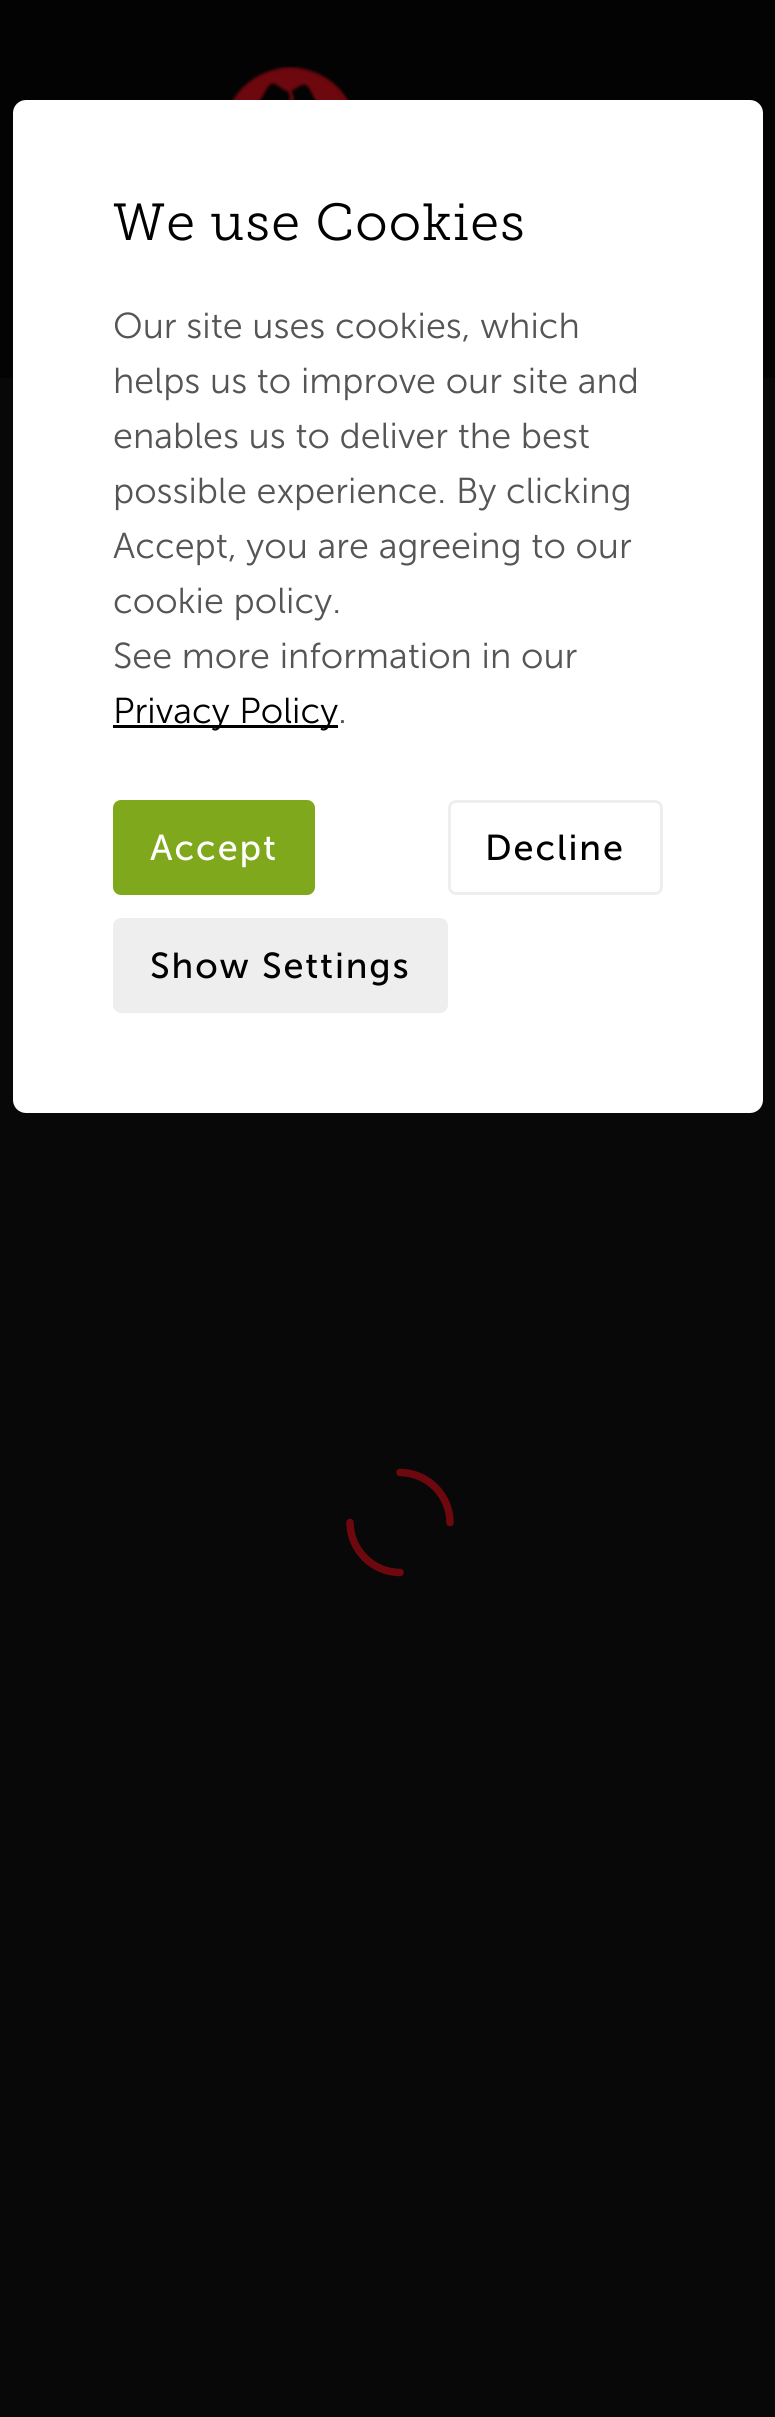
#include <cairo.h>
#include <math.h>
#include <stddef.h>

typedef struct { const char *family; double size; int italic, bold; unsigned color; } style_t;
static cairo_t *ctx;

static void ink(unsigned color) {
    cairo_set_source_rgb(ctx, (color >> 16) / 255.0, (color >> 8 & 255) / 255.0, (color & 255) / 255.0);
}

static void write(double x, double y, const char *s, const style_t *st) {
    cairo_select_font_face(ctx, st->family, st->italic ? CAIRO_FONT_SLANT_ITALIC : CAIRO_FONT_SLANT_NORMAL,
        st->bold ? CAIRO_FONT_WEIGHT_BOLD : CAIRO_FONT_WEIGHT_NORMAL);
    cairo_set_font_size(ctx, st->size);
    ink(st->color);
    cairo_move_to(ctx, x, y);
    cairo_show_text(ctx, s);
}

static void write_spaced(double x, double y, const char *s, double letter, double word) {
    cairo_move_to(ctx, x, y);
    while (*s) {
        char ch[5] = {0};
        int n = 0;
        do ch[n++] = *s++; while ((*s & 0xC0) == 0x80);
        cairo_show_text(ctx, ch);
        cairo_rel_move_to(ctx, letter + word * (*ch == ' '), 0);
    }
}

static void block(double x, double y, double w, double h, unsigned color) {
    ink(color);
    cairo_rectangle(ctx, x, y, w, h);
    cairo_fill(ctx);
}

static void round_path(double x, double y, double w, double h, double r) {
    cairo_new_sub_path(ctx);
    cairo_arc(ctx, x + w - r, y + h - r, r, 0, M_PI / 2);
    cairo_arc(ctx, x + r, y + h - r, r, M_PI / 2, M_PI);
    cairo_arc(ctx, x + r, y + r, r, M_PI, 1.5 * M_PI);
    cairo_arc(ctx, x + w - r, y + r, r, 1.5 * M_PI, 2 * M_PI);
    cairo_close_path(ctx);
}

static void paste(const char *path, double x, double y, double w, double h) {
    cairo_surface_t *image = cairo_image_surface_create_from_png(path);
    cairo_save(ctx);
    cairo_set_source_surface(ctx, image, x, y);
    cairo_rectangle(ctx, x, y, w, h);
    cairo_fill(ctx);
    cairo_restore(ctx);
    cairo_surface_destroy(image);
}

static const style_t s1 = {"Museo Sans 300 Light", 36, 0, 0, 0x555555};
static const style_t s2 = {"Museo Sans 300 Light", 36, 0, 0, 0x000000};

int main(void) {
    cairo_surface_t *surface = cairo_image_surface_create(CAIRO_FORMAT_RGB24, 775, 2417);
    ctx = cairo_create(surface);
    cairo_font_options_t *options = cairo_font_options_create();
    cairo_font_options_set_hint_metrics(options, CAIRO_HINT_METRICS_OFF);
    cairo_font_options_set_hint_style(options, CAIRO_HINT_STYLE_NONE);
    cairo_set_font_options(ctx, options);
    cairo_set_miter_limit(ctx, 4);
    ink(0x080808);
    cairo_paint(ctx);
    block(0, 0, 775, 378, 0x030303);
    paste("pic1.png", 230, 66, 120, 34);
    ink(0xffffff);
    round_path(13, 100, 750, 1013, 13);
    cairo_fill(ctx);
    cairo_select_font_face(ctx, "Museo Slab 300 Light", CAIRO_FONT_SLANT_NORMAL, CAIRO_FONT_WEIGHT_NORMAL);
    cairo_set_font_size(ctx, 52);
    ink(0x000000);
    write_spaced(113, 240, "We use Cookies", 1.25, 0);
    write(113, 338, "Our site uses cookies, which", &s1);
    write(113, 393, "helps us to improve our site and", &s1);
    write(113, 448, "enables us to deliver the best", &s1);
    write(113, 503, "possible experience. By clicking", &s1);
    write(113, 558, "Accept, you are agreeing to our", &s1);
    write(113, 613, "cookie policy.", &s1);
    write(113, 668, "See more information in our", &s1);
    block(113, 725, 225, 3, 0x000000);
    write(113, 723, "Privacy Policy", &s2);
    write(338, 723, ".", &s1);
    ink(0x7fa81c);
    round_path(113, 800, 202, 95, 8);
    cairo_fill(ctx);
    cairo_select_font_face(ctx, "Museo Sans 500", CAIRO_FONT_SLANT_NORMAL, CAIRO_FONT_WEIGHT_NORMAL);
    ink(0xffffff);
    write_spaced(150, 860, "Accept", 1.9, 0);
    round_path(449.5, 801.5, 212, 92, 6.5);
    ink(0xeeeeee);
    cairo_set_line_width(ctx, 3);
    cairo_stroke(ctx);
    ink(0x000000);
    write_spaced(485, 860, "Decline", 1.9, 0);
    ink(0xeeeeee);
    round_path(113, 918, 335, 95, 8);
    cairo_fill(ctx);
    ink(0x000000);
    write_spaced(150, 978, "Show Settings", 1.9, 0);
    cairo_new_path(ctx);
    cairo_move_to(ctx, 400, 1472.5);
    cairo_curve_to(ctx, 427.5, 1472.5, 450, 1495.5, 450, 1522.5);
    cairo_move_to(ctx, 400, 1572.5);
    cairo_curve_to(ctx, 372.5, 1572.5, 350, 1549.5, 350, 1522.5);
    ink(0x6d080f);
    cairo_set_line_width(ctx, 7.5);
    cairo_set_line_cap(ctx, CAIRO_LINE_CAP_ROUND);
    cairo_stroke(ctx);
    cairo_surface_write_to_png(surface, "screenshot.png");
    cairo_font_options_destroy(options);
    cairo_destroy(ctx);
    cairo_surface_destroy(surface);
    return 0;
}
